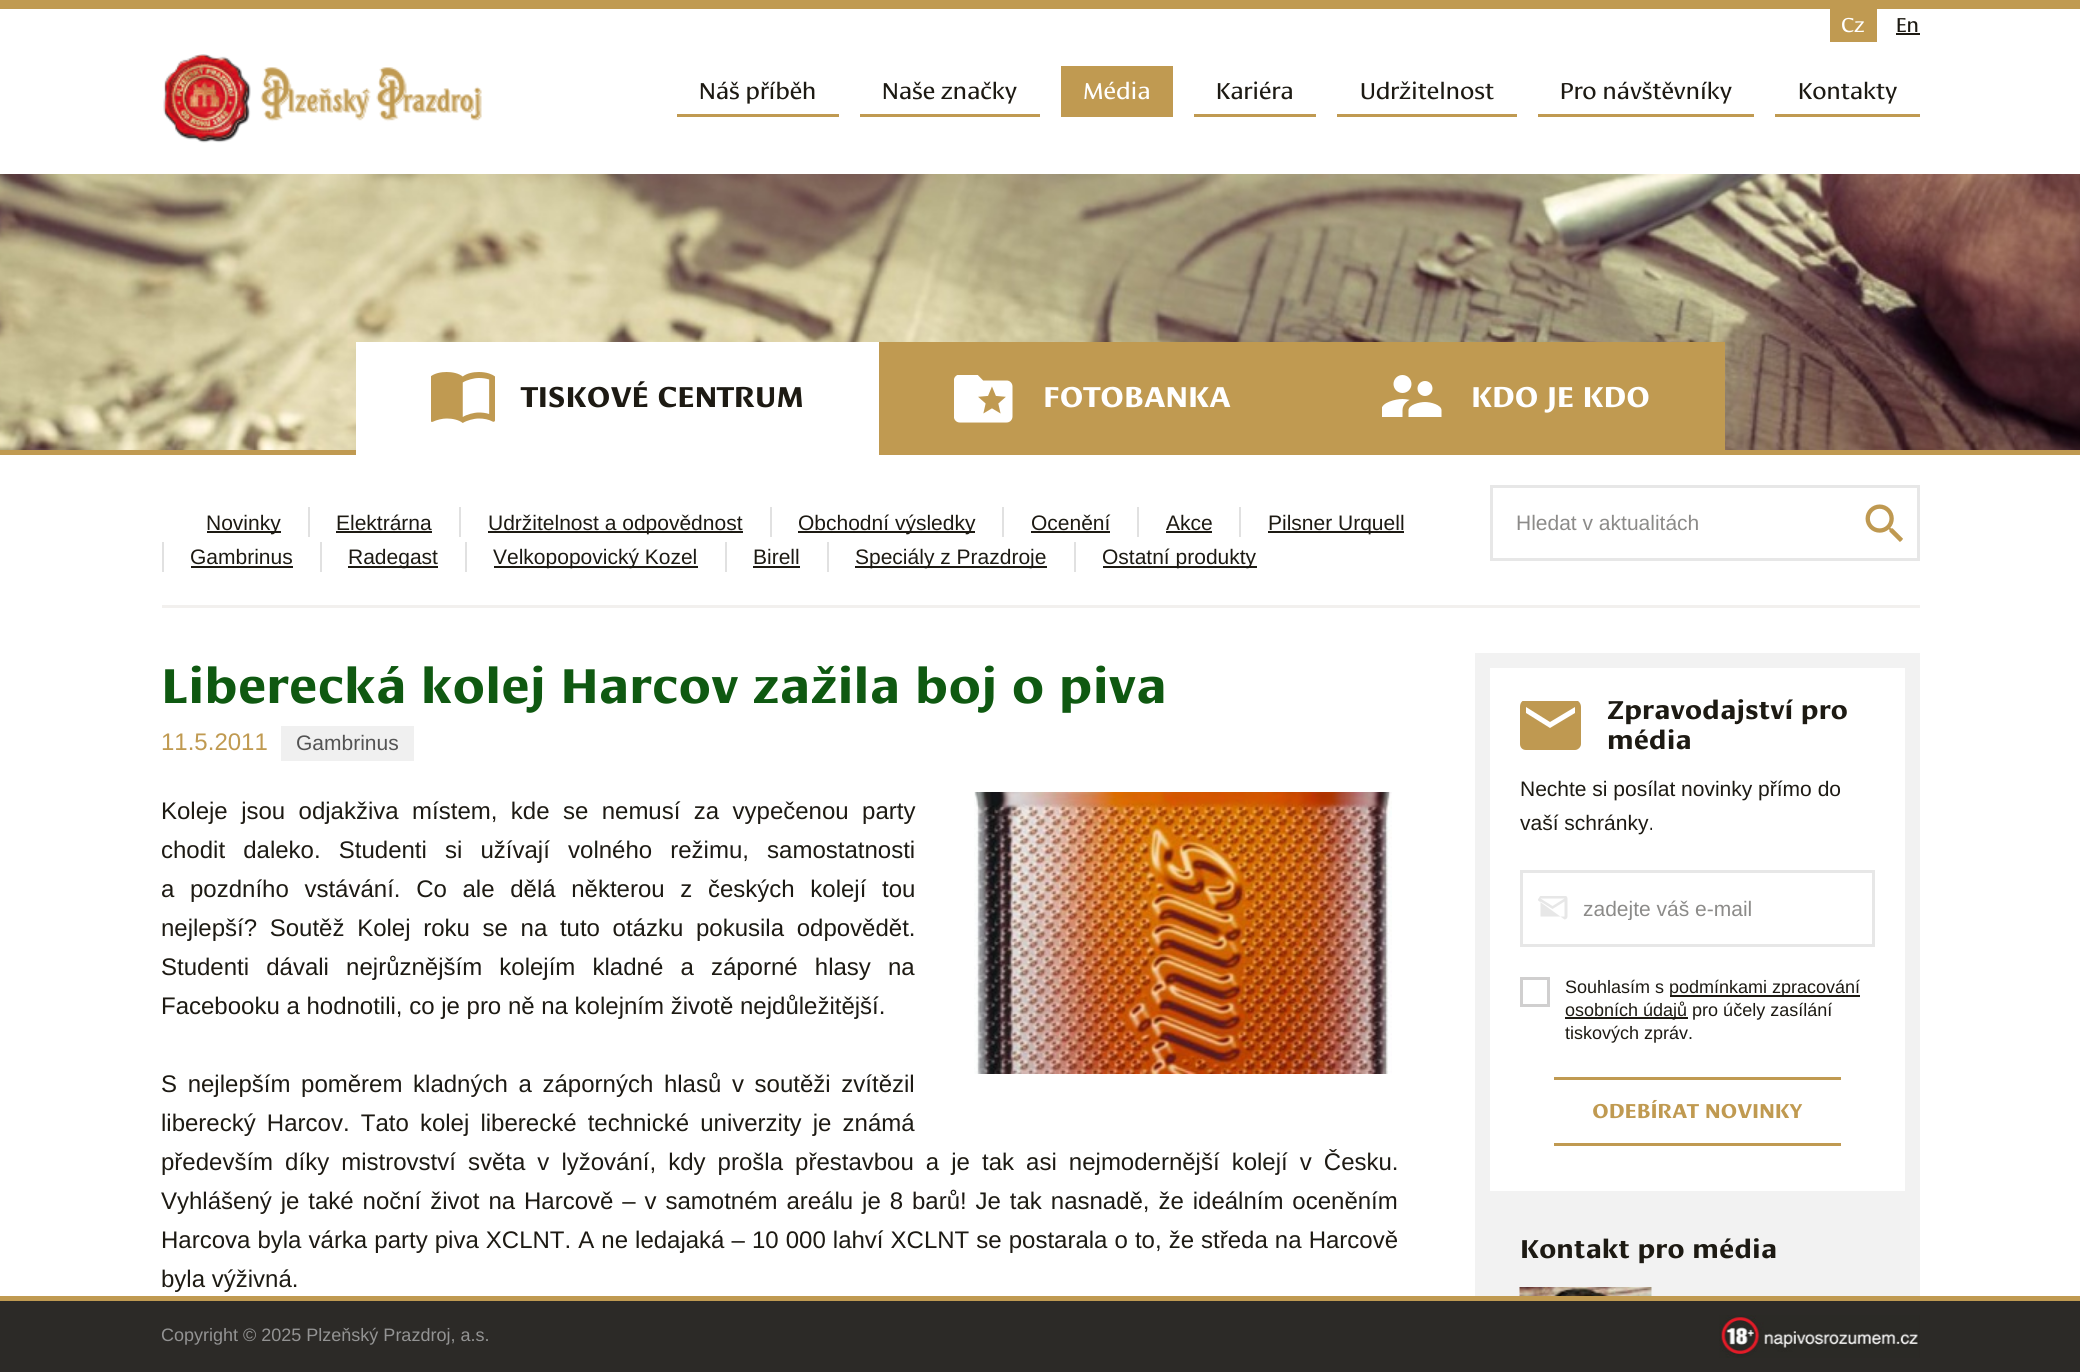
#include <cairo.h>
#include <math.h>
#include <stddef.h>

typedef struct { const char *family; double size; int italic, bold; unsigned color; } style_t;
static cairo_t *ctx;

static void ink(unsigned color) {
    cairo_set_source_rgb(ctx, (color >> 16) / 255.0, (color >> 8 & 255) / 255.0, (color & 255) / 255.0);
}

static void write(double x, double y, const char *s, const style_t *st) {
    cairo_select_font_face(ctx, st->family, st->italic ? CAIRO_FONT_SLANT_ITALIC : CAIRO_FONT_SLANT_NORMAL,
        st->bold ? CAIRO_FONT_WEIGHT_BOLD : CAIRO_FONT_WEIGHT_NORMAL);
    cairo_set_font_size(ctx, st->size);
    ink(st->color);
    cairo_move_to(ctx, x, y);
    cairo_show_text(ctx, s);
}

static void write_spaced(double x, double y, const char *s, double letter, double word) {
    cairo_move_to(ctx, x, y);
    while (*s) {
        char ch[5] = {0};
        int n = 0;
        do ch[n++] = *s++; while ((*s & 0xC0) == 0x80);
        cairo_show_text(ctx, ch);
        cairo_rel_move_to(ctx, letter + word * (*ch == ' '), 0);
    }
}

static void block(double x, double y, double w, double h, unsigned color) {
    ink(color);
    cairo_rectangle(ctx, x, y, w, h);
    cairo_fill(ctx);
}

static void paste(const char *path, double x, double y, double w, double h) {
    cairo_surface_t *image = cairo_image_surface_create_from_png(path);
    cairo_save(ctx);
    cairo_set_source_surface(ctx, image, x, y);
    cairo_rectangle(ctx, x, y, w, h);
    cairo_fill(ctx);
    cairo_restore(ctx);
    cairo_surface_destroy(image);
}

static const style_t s1 = {"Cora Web", 21, 0, 0, 0xffffff};
static const style_t s2 = {"Cora Web", 21, 0, 0, 0x1d1a13};
static const style_t s3 = {"Cora Web", 24, 0, 0, 0x1d1a13};
static const style_t s4 = {"Cora Web", 24, 0, 0, 0xffffff};
static const style_t s5 = {"Cora Web", 30, 0, 1, 0x1d1a13};
static const style_t s6 = {"Cora Web", 30, 0, 1, 0xffffff};
static const style_t s7 = {"Liberation Sans", 21, 0, 0, 0x1d1a13};
static const style_t s8 = {"Liberation Sans", 21, 0, 0, 0x8c8b89};
static const style_t s9 = {"Cora Web", 51, 0, 1, 0x0f5911};
static const style_t s10 = {"Liberation Sans", 24, 0, 0, 0xc09a51};
static const style_t s11 = {"Liberation Sans", 21, 0, 0, 0x535353};
static const style_t s12 = {"Liberation Sans", 24, 0, 0, 0x1d1a13};
static const style_t s13 = {"Cora Web", 27, 0, 1, 0x1d1a13};
static const style_t s14 = {"Liberation Sans", 18, 0, 0, 0x1d1a13};
static const style_t s15 = {"Cora Web", 21, 0, 1, 0xc09a51};
static const style_t s16 = {"Liberation Sans", 18, 0, 0, 0x939393};

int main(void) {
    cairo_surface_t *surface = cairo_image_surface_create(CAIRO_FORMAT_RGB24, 2080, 1372);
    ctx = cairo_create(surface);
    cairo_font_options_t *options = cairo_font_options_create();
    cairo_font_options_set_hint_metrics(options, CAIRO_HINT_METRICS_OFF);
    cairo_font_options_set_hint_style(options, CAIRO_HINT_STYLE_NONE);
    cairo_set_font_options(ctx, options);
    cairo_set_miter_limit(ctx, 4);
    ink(0xffffff);
    cairo_paint(ctx);
    block(0, 0, 2080, 9, 0xc09a51);
    block(1830, 9, 47, 33, 0xc09a51);
    write(1841, 32, "Cz", &s1);
    write(1896, 32, "En", &s2);
    block(1896, 33, 24, 2, 0x1d1a13);
    paste("pic1.png", 163, 54, 319, 89);
    block(677, 114, 162, 3, 0xc09a51);
    write(699, 99, "Náš příběh", &s3);
    block(860, 114, 180, 3, 0xc09a51);
    write(882, 99, "Naše značky", &s3);
    block(1061, 66, 112, 51, 0xc09a51);
    write(1083, 99, "Média", &s4);
    block(1194, 114, 122, 3, 0xc09a51);
    write(1216, 99, "Kariéra", &s3);
    block(1337, 114, 180, 3, 0xc09a51);
    write(1360, 99, "Udržitelnost", &s3);
    block(1538, 114, 216, 3, 0xc09a51);
    write(1560, 99, "Pro návštěvníky", &s3);
    block(1775, 114, 145, 3, 0xc09a51);
    write(1798, 99, "Kontakty", &s3);
    paste("pic2.png", 0, 174, 2080, 276);
    block(0, 450, 2080, 5, 0xc09a51);
    block(356, 342, 523, 113, 0xffffff);
    paste("pic3.png", 431, 372, 64, 51);
    write(521, 407, "TISKOVÉ CENTRUM", &s5);
    block(879, 342, 846, 108, 0xc09a51);
    paste("pic4.png", 954, 375, 59, 48);
    write(1043, 407, "FOTOBANKA", &s6);
    paste("pic5.png", 1382, 375, 60, 42);
    write(1471, 407, "KDO JE KDO", &s6);
    block(162, 605, 1758, 3, 0xf2f0ee);
    block(207, 531, 74, 2, 0x1d1a13);
    write(206, 530, "Novinky", &s7);
    block(308, 507, 2, 30, 0xe1e1e1);
    write(336, 530, "Elektrárna", &s7);
    block(336, 531, 96, 2, 0x1d1a13);
    block(459, 507, 2, 30, 0xe1e1e1);
    block(488, 531, 255, 2, 0x1d1a13);
    write(488, 530, "Udržitelnost a odpovědnost", &s7);
    block(770, 507, 2, 30, 0xe1e1e1);
    block(798, 531, 177, 2, 0x1d1a13);
    write(798, 530, "Obchodní výsledky", &s7);
    block(1002, 507, 2, 30, 0xe1e1e1);
    write(1031, 530, "Ocenění", &s7);
    block(1031, 531, 79, 2, 0x1d1a13);
    block(1137, 507, 2, 30, 0xe1e1e1);
    write(1166, 530, "Akce", &s7);
    block(1166, 531, 46, 2, 0x1d1a13);
    block(1239, 507, 2, 30, 0xe1e1e1);
    block(1268, 531, 136, 2, 0x1d1a13);
    write(1268, 530, "Pilsner Urquell", &s7);
    block(162, 542, 2, 30, 0xe1e1e1);
    write(190, 564, "Gambrinus", &s7);
    block(191, 566, 102, 2, 0x1d1a13);
    block(320, 542, 2, 30, 0xe1e1e1);
    block(348, 566, 90, 2, 0x1d1a13);
    write(348, 564, "Radegast", &s7);
    block(465, 542, 2, 30, 0xe1e1e1);
    block(494, 566, 204, 2, 0x1d1a13);
    write(493, 564, "Velkopopovický Kozel", &s7);
    block(725, 542, 2, 30, 0xe1e1e1);
    write(753, 564, "Birell", &s7);
    block(753, 566, 47, 2, 0x1d1a13);
    block(827, 542, 2, 30, 0xe1e1e1);
    block(855, 566, 192, 2, 0x1d1a13);
    write(855, 564, "Speciály z Prazdroje", &s7);
    block(1074, 542, 2, 30, 0xe1e1e1);
    block(1103, 566, 154, 2, 0x1d1a13);
    write(1102, 564, "Ostatní produkty", &s7);
    cairo_rectangle(ctx, 1491.5, 486.5, 427, 73);
    ink(0xe7e7e7);
    cairo_set_line_width(ctx, 3);
    cairo_stroke(ctx);
    write(1516, 530, "Hledat v aktualitách", &s8);
    paste("pic6.png", 1865, 504, 38, 38);
    write(161, 703, "Liberecká kolej Harcov zažila boj o piva", &s9);
    write(161, 750, "11.5.2011", &s10);
    block(281, 726, 133, 35, 0xf0f0f0);
    write(296, 750, "Gambrinus", &s11);
    cairo_set_font_size(ctx, 24);
    ink(0x1d1a13);
    write_spaced(161, 819, "Koleje jsou odjakživa místem, kde se nemusí za vypečenou party", 0, 6.75);
    write_spaced(161, 858, "chodit daleko. Studenti si užívají volného režimu, samostatnosti", 0, 11.5);
    write_spaced(161, 897, "a pozdního vstávání. Co ale dělá některou z českých kolejí tou", 0, 9);
    write_spaced(161, 936, "nejlepší? Soutěž Kolej roku se na tuto otázku pokusila odpovědět.", 0, 6);
    write_spaced(161, 975, "Studenti dávali nejrůznějším kolejím kladné a záporné hlasy na", 0, 10.5);
    write(161, 1014, "Facebooku a hodnotili, co je pro ně na kolejním životě nejdůležitější.", &s12);
    paste("pic7.png", 974, 792, 418, 282);
    write_spaced(161, 1092, "S nejlepším poměrem kladných a záporných hlasů v soutěži zvítězil", 0, 4);
    write_spaced(161, 1131, "liberecký Harcov. Tato kolej liberecké technické univerzity je známá", 0, 4.5);
    write_spaced(161, 1170, "především díky mistrovství světa v lyžování, kdy prošla přestavbou a je tak asi nejmodernější kolejí v Česku.", 0, 5.4);
    write_spaced(161, 1209, "Vyhlášený je také noční život na Harcově – v samotném areálu je 8 barů! Je tak nasnadě, že ideálním oceněním", 0, 2.25);
    write_spaced(161, 1248, "Harcova byla várka party piva XCLNT. A ne ledajaká – 10 000 lahví XCLNT se postarala o to, že středa na Harcově", 0, 0.4);
    write(161, 1287, "byla výživná.", &s12);
    block(1475, 653, 445, 643, 0xf2f2f2);
    block(1490, 668, 415, 523, 0xffffff);
    cairo_save(ctx);
    cairo_rectangle(ctx, 1520, 701, 61, 49);
    cairo_clip(ctx);
    ink(0xbf9951);
    cairo_new_path(ctx);
    cairo_move_to(ctx, 1575, 700);
    cairo_line_to(ctx, 1526, 700);
    cairo_curve_to(ctx, 1522, 700, 1520, 703, 1520, 707);
    cairo_line_to(ctx, 1520, 744);
    cairo_curve_to(ctx, 1520, 747, 1522, 750, 1526, 750);
    cairo_line_to(ctx, 1575, 750);
    cairo_curve_to(ctx, 1578, 750, 1581, 747, 1581, 744);
    cairo_line_to(ctx, 1581, 707);
    cairo_curve_to(ctx, 1581, 703, 1578, 700, 1575, 700);
    cairo_close_path(ctx);
    cairo_move_to(ctx, 1575, 713);
    cairo_line_to(ctx, 1550, 728);
    cairo_line_to(ctx, 1526, 713);
    cairo_line_to(ctx, 1526, 707);
    cairo_line_to(ctx, 1550, 722);
    cairo_line_to(ctx, 1575, 707);
    cairo_close_path(ctx);
    cairo_fill(ctx);
    cairo_restore(ctx);
    write(1607, 719, "Zpravodajství pro", &s13);
    write(1607, 749, "média", &s13);
    write(1520, 796, "Nechte si posílat novinky přímo do", &s7);
    write(1520, 830, "vaší schránky.", &s7);
    paste("pic8.png", 1538, 896, 30, 24);
    cairo_rectangle(ctx, 1521.5, 871.5, 352, 74);
    ink(0xe7e7e7);
    cairo_stroke(ctx);
    cairo_save(ctx);
    cairo_rectangle(ctx, 1583, 896, 265, 24);
    cairo_clip(ctx);
    write(1583, 916, "zadejte váš e-mail", &s8);
    cairo_restore(ctx);
    cairo_rectangle(ctx, 1521.5, 978.5, 27, 27);
    ink(0xd0cfcf);
    cairo_stroke(ctx);
    write(1565, 993, "Souhlasím s", &s14);
    block(1670, 995, 190, 2, 0x1d1a13);
    write(1669, 993, "podmínkami zpracování", &s14);
    block(1565, 1017, 123, 2, 0x1d1a13);
    write(1565, 1016, "osobních údajů pro účely zasílání", &s14);
    write(1565, 1039, "tiskových zpráv.", &s14);
    block(1554, 1077, 287, 3, 0xc09a51);
    block(1554, 1143, 287, 3, 0xc09a51);
    write(1592, 1118, "ODEBÍRAT NOVINKY", &s15);
    write(1520, 1258, "Kontakt pro média", &s13);
    paste("pic9.png", 1519, 1287, 133, 9);
    block(0, 1301, 2080, 71, 0x2c2a27);
    block(0, 1296, 2080, 5, 0xc09a51);
    write(161, 1341, "Copyright © 2025 Plzeňský Prazdroj, a.s.", &s16);
    paste("pic10.png", 1719, 1315, 201, 43);
    cairo_surface_write_to_png(surface, "screenshot.png");
    cairo_font_options_destroy(options);
    cairo_destroy(ctx);
    cairo_surface_destroy(surface);
    return 0;
}
